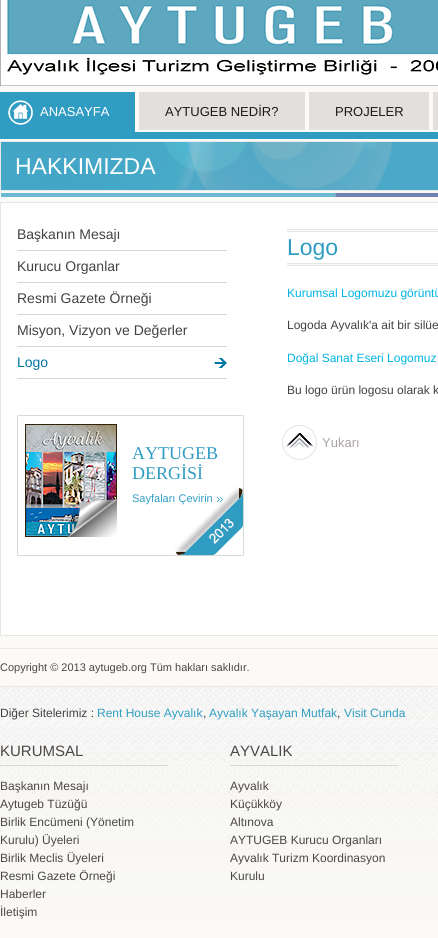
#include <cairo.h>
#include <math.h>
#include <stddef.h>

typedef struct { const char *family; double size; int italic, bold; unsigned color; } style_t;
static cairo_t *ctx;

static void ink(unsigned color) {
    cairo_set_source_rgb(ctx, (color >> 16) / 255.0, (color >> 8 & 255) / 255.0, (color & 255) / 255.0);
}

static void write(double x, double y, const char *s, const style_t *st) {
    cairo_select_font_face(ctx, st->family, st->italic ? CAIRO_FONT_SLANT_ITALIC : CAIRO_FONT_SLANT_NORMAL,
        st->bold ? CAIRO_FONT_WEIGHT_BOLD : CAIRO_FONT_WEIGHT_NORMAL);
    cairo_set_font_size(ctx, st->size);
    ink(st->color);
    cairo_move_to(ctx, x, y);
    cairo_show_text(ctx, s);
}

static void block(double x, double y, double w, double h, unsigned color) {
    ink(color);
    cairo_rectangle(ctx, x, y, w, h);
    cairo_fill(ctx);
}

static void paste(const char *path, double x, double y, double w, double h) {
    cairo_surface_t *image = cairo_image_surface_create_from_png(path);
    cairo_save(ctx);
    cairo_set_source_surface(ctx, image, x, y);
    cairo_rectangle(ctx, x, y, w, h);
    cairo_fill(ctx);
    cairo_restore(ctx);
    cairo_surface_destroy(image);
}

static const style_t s1 = {"Liberation Sans", 13, 0, 0, 0xffffff};
static const style_t s2 = {"Liberation Sans", 13, 0, 0, 0x1f1915};
static const style_t s3 = {"Liberation Sans", 23, 0, 0, 0xffffff};
static const style_t s4 = {"Liberation Sans", 14, 0, 0, 0x424242};
static const style_t s5 = {"Liberation Sans", 14, 0, 0, 0x0076a3};
static const style_t s6 = {"Liberation Serif", 18, 0, 0, 0x309cc2};
static const style_t s7 = {"Liberation Sans", 11, 0, 0, 0x309cc2};
static const style_t s8 = {"Liberation Sans", 23, 0, 0, 0x309cc2};
static const style_t s9 = {"Liberation Sans", 12, 0, 0, 0x00b4e3};
static const style_t s10 = {"Liberation Sans", 12, 0, 0, 0x424242};
static const style_t s11 = {"Liberation Sans", 13, 0, 0, 0xaaa3a3};
static const style_t s12 = {"Liberation Sans", 11, 0, 0, 0x4c4744};
static const style_t s13 = {"Liberation Sans", 12, 0, 0, 0x309cc2};
static const style_t s14 = {"Liberation Sans", 15, 0, 0, 0x4c4744};
static const style_t s15 = {"Liberation Sans", 12, 0, 0, 0x4c4744};

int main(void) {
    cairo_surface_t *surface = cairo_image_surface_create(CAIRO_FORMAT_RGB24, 438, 938);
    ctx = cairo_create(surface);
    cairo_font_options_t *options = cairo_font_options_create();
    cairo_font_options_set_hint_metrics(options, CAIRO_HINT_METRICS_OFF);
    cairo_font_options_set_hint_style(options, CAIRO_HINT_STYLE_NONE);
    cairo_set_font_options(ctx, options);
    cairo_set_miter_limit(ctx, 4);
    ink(0xfbfaf6);
    cairo_paint(ctx);
    paste("pic1.png", 0, 0, 438, 86);
    block(0, 92, 135, 40, 0x309cc2);
    paste("pic2.png", 8, 100, 25, 25);
    write(40, 116, "ANASAYFA", &s1);
    block(139, 92, 166, 38, 0xe2e0dd);
    write(165, 116, "AYTUGEB NEDİR?", &s2);
    block(309, 92, 120, 38, 0xe2e0dd);
    write(335, 116, "PROJELER", &s2);
    block(433, 92, 5, 38, 0xe2e0dd);
    block(0, 132, 438, 7, 0x309cc2);
    paste("pic3.png", 0, 141, 438, 56);
    write(15, 174, "HAKKIMIZDA", &s3);
    cairo_rectangle(ctx, 0.5, 202.5, 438, 433);
    cairo_fill_preserve(ctx);
    ink(0xe6e7e5);
    cairo_set_line_width(ctx, 1);
    cairo_stroke(ctx);
    block(17, 250, 210, 1, 0xd6d6d6);
    write(17, 239, "Başkanın Mesajı", &s4);
    block(17, 282, 210, 1, 0xd6d6d6);
    write(17, 271, "Kurucu Organlar", &s4);
    block(17, 314, 210, 1, 0xd6d6d6);
    write(17, 303, "Resmi Gazete Örneği", &s4);
    block(17, 346, 210, 1, 0xd6d6d6);
    write(17, 335, "Misyon, Vizyon ve Değerler", &s4);
    paste("pic4.png", 214, 358, 13, 10);
    block(17, 378, 210, 1, 0xd6d6d6);
    write(17, 367, "Logo", &s5);
    paste("pic5.png", 17, 415, 227, 141);
    write(132, 459, "AYTUGEB", &s6);
    write(132, 479, "DERGİSİ", &s6);
    paste("pic6.png", 217, 497, 6, 5);
    write(132, 502, "Sayfaları Çevirin", &s7);
    block(287, 230, 151, 35, 0xfbfbfb);
    block(287, 229, 151, 1, 0xe6e7e5);
    block(287, 265, 151, 1, 0xe6e7e5);
    block(287, 232, 151, 31, 0xffffff);
    block(287, 231, 151, 1, 0xe6e7e5);
    block(287, 263, 151, 1, 0xe6e7e5);
    write(287, 255, "Logo", &s8);
    write(287, 297, "Kurumsal Logomuzu görüntü", &s9);
    write(287, 329, "Logoda Ayvalık'a ait bir silüe", &s10);
    write(287, 362, "Doğal Sanat Eseri Logomuz", &s9);
    write(287, 394, "Bu logo ürün logosu olarak k", &s10);
    paste("pic7.png", 282, 425, 35, 35);
    write(322, 447, "Yukarı", &s11);
    block(0, 648, 438, 1, 0xedebe8);
    block(0, 686, 438, 1, 0xedebe8);
    write(0, 671, "Copyright © 2013 aytugeb.org Tüm hakları saklıdır.", &s12);
    paste("pic8.png", 0, 687, 438, 236);
    write(0, 717, "Diğer Sitelerimiz :", &s10);
    write(97, 717, "Rent House Ayvalık", &s13);
    write(203, 717, ",", &s10);
    write(209, 717, "Ayvalık Yaşayan Mutfak", &s13);
    write(337, 717, ",", &s10);
    write(344, 717, "Visit Cunda", &s13);
    block(0, 765, 168, 1, 0xd9dad5);
    write(0, 756, "KURUMSAL", &s14);
    write(0, 790, "Başkanın Mesajı", &s15);
    write(0, 808, "Aytugeb Tüzüğü", &s15);
    write(0, 826, "Birlik Encümeni (Yönetim", &s15);
    write(0, 844, "Kurulu) Üyeleri", &s15);
    write(0, 862, "Birlik Meclis Üyeleri", &s15);
    write(0, 880, "Resmi Gazete Örneği", &s15);
    write(0, 898, "Haberler", &s15);
    write(0, 916, "İletişim", &s15);
    block(230, 765, 168, 1, 0xd9dad5);
    write(230, 756, "AYVALIK", &s14);
    write(230, 790, "Ayvalık", &s15);
    write(230, 808, "Küçükköy", &s15);
    write(230, 826, "Altınova", &s15);
    write(230, 844, "AYTUGEB Kurucu Organları", &s15);
    write(230, 862, "Ayvalık Turizm Koordinasyon", &s15);
    write(230, 880, "Kurulu", &s15);
    cairo_surface_write_to_png(surface, "screenshot.png");
    cairo_font_options_destroy(options);
    cairo_destroy(ctx);
    cairo_surface_destroy(surface);
    return 0;
}
